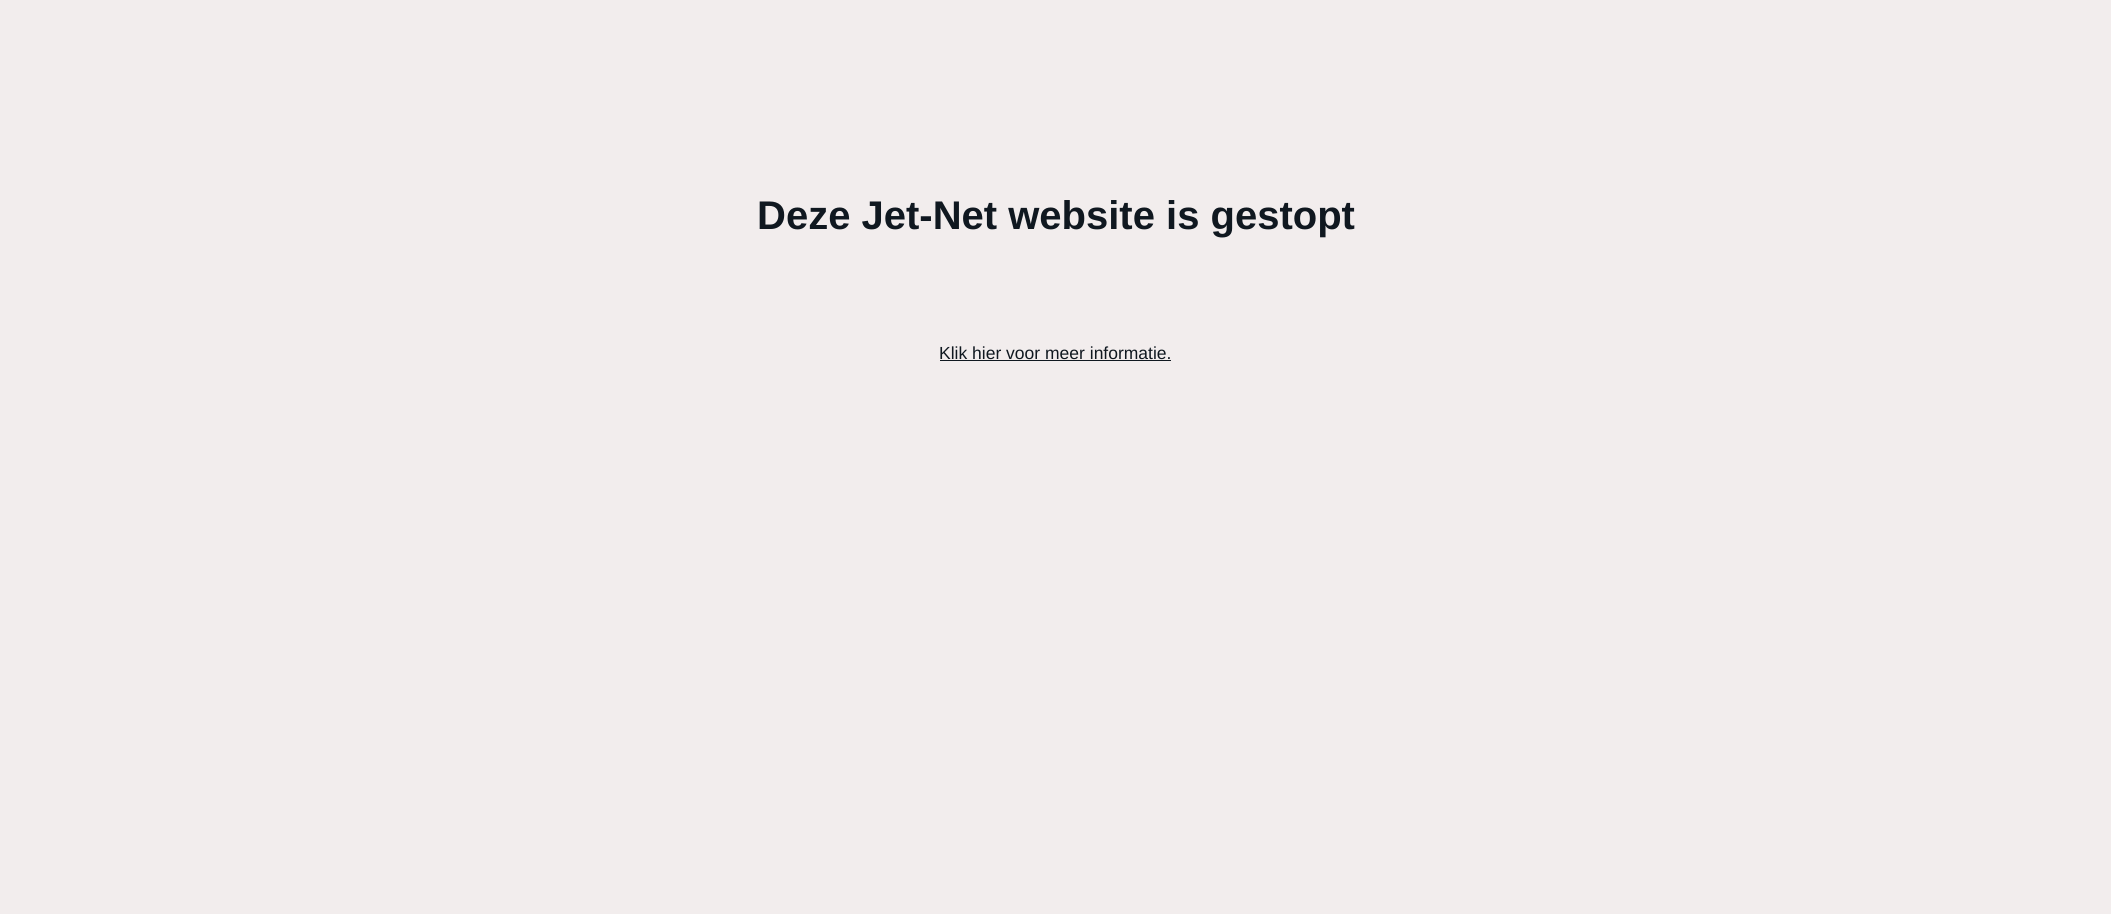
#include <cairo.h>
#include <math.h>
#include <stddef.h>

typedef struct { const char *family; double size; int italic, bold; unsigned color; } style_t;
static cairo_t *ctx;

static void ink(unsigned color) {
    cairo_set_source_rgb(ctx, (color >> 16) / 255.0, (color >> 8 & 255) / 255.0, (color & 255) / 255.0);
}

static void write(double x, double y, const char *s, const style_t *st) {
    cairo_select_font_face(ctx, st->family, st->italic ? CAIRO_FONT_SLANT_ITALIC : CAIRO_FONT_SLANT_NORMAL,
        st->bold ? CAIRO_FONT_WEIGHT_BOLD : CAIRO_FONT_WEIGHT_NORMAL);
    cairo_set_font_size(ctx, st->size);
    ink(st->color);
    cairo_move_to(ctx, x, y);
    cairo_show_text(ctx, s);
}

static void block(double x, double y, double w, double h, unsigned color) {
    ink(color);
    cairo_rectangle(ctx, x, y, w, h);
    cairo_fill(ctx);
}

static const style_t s1 = {"Liberation Sans", 40, 0, 1, 0x101820};
static const style_t s2 = {"Liberation Sans", 17.5, 0, 0, 0x101820};

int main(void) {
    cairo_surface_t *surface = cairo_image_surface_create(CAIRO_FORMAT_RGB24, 2111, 914);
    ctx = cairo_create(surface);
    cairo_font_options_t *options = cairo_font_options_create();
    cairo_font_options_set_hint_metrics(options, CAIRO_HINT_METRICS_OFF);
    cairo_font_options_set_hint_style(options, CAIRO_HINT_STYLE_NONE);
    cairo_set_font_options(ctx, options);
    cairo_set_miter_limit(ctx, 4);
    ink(0xf2eded);
    cairo_paint(ctx);
    write(757, 229, "Deze Jet-Net website is gestopt", &s1);
    write(939, 359, "Klik hier voor meer informatie.", &s2);
    block(940, 360, 231, 1, 0x101820);
    cairo_surface_write_to_png(surface, "screenshot.png");
    cairo_font_options_destroy(options);
    cairo_destroy(ctx);
    cairo_surface_destroy(surface);
    return 0;
}
